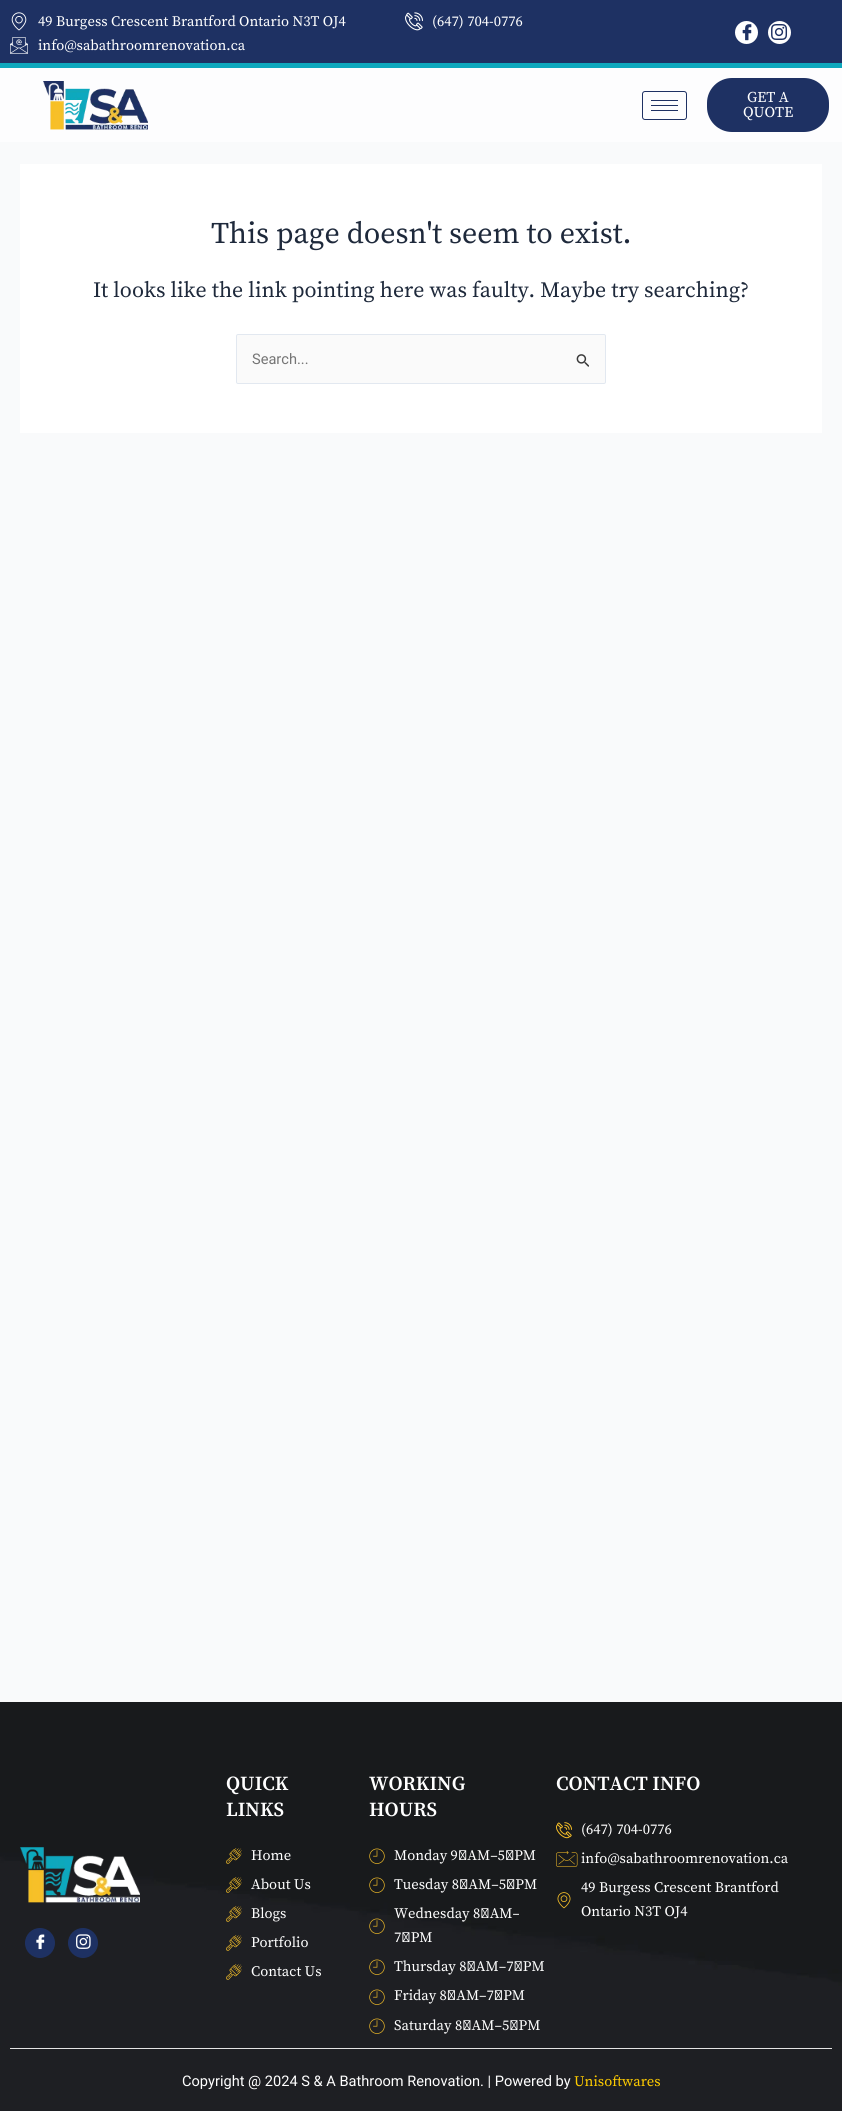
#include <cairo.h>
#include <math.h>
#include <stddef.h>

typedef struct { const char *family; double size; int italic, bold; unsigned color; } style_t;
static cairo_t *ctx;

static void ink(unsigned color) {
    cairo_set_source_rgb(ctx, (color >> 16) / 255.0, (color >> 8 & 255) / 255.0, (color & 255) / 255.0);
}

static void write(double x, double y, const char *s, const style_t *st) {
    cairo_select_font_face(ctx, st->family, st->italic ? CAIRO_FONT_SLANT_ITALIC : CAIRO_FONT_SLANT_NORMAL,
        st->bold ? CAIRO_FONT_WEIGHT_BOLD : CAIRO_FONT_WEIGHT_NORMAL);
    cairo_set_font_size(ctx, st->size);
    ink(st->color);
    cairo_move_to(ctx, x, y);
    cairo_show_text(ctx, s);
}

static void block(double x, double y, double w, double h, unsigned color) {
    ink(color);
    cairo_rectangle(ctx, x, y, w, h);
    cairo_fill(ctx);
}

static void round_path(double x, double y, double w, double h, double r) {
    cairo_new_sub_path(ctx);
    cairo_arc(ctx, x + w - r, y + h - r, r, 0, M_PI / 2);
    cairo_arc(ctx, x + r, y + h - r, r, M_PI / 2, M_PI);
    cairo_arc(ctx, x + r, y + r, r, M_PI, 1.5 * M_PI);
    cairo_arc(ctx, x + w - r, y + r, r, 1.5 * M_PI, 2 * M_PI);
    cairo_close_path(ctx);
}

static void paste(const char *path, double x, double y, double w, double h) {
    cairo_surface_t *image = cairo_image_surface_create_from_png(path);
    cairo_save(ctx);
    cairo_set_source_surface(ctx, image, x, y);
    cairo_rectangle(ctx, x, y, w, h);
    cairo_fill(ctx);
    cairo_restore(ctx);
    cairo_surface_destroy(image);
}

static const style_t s1 = {"Source Serif Pro", 14.6, 0, 0, 0xffffff};
static const style_t s2 = {"Source Serif Pro", 15, 0, 0, 0xffffff};
static const style_t s3 = {"Source Serif Pro", 30, 0, 0, 0x1e293b};
static const style_t s4 = {"Source Serif Pro", 21.9, 0, 0, 0x1e293b};
static const style_t s5 = {"Roboto", 14.6, 0, 0, 0x757575};
static const style_t s6 = {"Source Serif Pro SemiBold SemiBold", 20, 0, 0, 0xffffff};
static const style_t s7 = {"Roboto", 14.6, 0, 0, 0xffffff};
static const style_t s8 = {"Source Serif Pro", 14.6, 0, 0, 0xffcc00};

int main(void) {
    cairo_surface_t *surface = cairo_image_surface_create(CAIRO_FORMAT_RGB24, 842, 2111);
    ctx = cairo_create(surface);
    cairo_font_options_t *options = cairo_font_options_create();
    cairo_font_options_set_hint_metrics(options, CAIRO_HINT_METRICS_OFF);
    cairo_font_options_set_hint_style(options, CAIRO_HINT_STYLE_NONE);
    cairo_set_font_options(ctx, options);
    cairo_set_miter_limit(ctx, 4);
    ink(0xf9fafb);
    cairo_paint(ctx);
    block(0, 0, 842, 63, 0x1e3163);
    block(0, 63, 842, 5, 0x0ea8bd);
    paste("pic1.png", 11, 12, 16, 19);
    write(38, 26, "49 Burgess Crescent Brantford Ontario N3T OJ4", &s1);
    paste("pic2.png", 405, 12, 18, 19);
    write(432, 26, "(647) 704-0776", &s1);
    paste("pic3.png", 10, 37, 18, 17);
    write(38, 50, "info@sabathroomrenovation.ca", &s1);
    cairo_new_path(ctx);
    cairo_arc(ctx, 746.5, 32.5, 11.5, 0, 2 * M_PI);
    cairo_fill(ctx);
    paste("pic4.png", 742, 24, 10, 17);
    cairo_arc(ctx, 779.5, 32.5, 11.5, 0, 2 * M_PI);
    cairo_fill(ctx);
    paste("pic5.png", 771, 24, 17, 16);
    block(0, 68, 842, 74, 0xfdfdfe);
    paste("pic6.png", 43, 81, 105, 49);
    round_path(642.5, 91.5, 44, 28, 2.5);
    ink(0x1e3163);
    cairo_set_line_width(ctx, 1);
    cairo_stroke(ctx);
    block(651, 100, 27, 1, 0x1e3163);
    block(651, 105, 27, 1, 0x1e3163);
    block(651, 110, 27, 1, 0x1e3163);
    round_path(707, 78, 122, 54, 25);
    cairo_fill(ctx);
    write(747, 102, "GET A", &s2);
    write(743, 117, "QUOTE", &s2);
    block(20, 164, 802, 269, 0xffffff);
    write(211, 243, "This page doesn't seem to exist.", &s3);
    write(93, 297, "It looks like the link pointing here was faulty. Maybe try searching?", &s4);
    ink(0xfafafa);
    round_path(236.5, 334.5, 369, 49, 1.5);
    cairo_fill_preserve(ctx);
    ink(0xe2e8f0);
    cairo_stroke(ctx);
    write(252, 364, "Search...", &s5);
    paste("pic7.png", 576, 354, 13, 13);
    paste("pic8.png", 0, 1702, 842, 409);
    paste("pic9.png", 20, 1847, 120, 56);
    ink(0x1e3163);
    cairo_arc(ctx, 40, 1943, 15, 0, 2 * M_PI);
    cairo_fill(ctx);
    paste("pic10.png", 36, 1934, 9, 16);
    cairo_arc(ctx, 83, 1943, 15, 0, 2 * M_PI);
    cairo_fill(ctx);
    paste("pic11.png", 76, 1934, 15, 15);
    write(226, 1790, "QUICK", &s6);
    write(226, 1816, "LINKS", &s6);
    paste("pic12.png", 226, 1848, 16, 16);
    write(251, 1860, "Home", &s1);
    paste("pic13.png", 226, 1877, 16, 16);
    write(251, 1889, "About Us", &s1);
    paste("pic14.png", 226, 1906, 16, 16);
    write(251, 1918, "Blogs", &s1);
    paste("pic14.png", 226, 1935, 16, 16);
    write(251, 1947, "Portfolio", &s1);
    paste("pic14.png", 226, 1964, 16, 16);
    write(251, 1976, "Contact Us", &s1);
    write(369, 1790, "WORKING", &s6);
    write(369, 1816, "HOURS", &s6);
    paste("pic15.png", 369, 1848, 16, 16);
    write(394, 1860, "Monday 9 AM–5 PM", &s1);
    paste("pic15.png", 369, 1877, 16, 16);
    write(394, 1889, "Tuesday 8 AM–5 PM", &s1);
    paste("pic16.png", 369, 1918, 16, 16);
    write(394, 1918, "Wednesday 8 AM–", &s1);
    write(394, 1942, "7 PM", &s1);
    paste("pic17.png", 369, 1959, 16, 16);
    write(394, 1971, "Thursday 8 AM–7 PM", &s1);
    paste("pic17.png", 369, 1989, 16, 16);
    write(394, 2000, "Friday 8 AM–7 PM", &s1);
    paste("pic17.png", 369, 2018, 16, 16);
    write(394, 2030, "Saturday 8 AM–5 PM", &s1);
    write(556, 1790, "CONTACT INFO", &s6);
    paste("pic18.png", 556, 1822, 16, 17);
    write(581, 1834, "(647) 704-0776", &s1);
    paste("pic19.png", 556, 1851, 22, 16);
    write(581, 1863, "info@sabathroomrenovation.ca", &s1);
    paste("pic20.png", 557, 1892, 14, 17);
    write(581, 1892, "49 Burgess Crescent Brantford", &s1);
    write(581, 1916, "Ontario N3T OJ4", &s1);
    block(10, 2048, 822, 1, 0xe4e4e4);
    write(182, 2086, "Copyright @ 2024 S & A Bathroom Renovation. | Powered by", &s7);
    write(574, 2086, "Unisoftwares", &s8);
    cairo_surface_write_to_png(surface, "screenshot.png");
    cairo_font_options_destroy(options);
    cairo_destroy(ctx);
    cairo_surface_destroy(surface);
    return 0;
}
